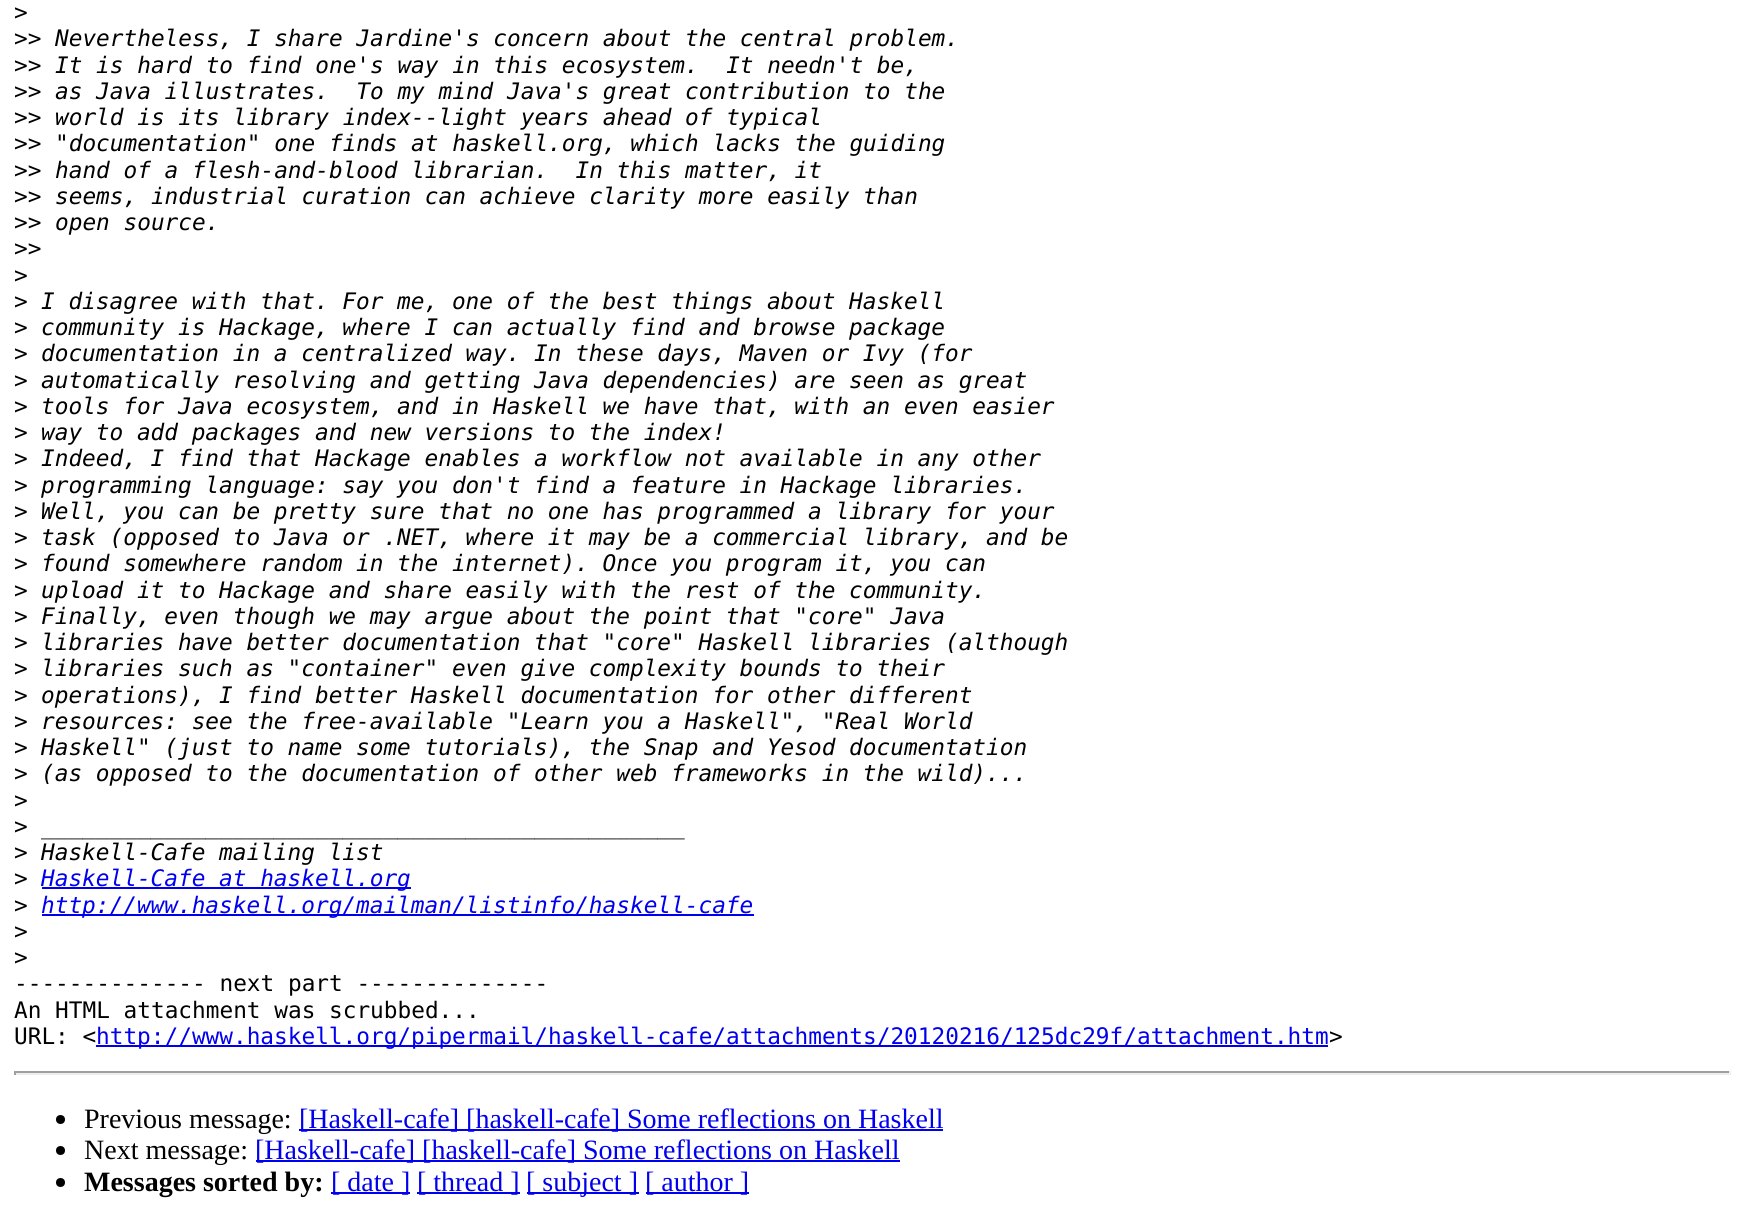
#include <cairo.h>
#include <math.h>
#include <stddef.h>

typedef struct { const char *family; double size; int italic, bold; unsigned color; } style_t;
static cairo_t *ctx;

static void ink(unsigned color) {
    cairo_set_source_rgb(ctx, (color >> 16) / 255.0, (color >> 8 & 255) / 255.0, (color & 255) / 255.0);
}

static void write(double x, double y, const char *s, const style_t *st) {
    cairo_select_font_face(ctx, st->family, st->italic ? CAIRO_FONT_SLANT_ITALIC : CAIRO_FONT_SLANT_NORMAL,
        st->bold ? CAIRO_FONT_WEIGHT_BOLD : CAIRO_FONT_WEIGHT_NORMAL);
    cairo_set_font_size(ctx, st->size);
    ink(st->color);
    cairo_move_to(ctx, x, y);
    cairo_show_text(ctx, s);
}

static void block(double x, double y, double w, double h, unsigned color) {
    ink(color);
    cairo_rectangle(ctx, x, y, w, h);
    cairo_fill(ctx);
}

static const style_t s1 = {"DejaVu Sans Mono", 22.75, 0, 0, 0x000000};
static const style_t s2 = {"DejaVu Sans Mono", 22.75, 1, 0, 0x000000};
static const style_t s3 = {"DejaVu Sans Mono", 22.75, 1, 0, 0x0000ee};
static const style_t s4 = {"DejaVu Sans Mono", 22.75, 0, 0, 0x0000ee};
static const style_t s5 = {"Liberation Serif", 28, 0, 0, 0x000000};
static const style_t s6 = {"Liberation Serif", 28, 0, 0, 0x0000ee};
static const style_t s7 = {"Liberation Serif", 28, 0, 1, 0x000000};

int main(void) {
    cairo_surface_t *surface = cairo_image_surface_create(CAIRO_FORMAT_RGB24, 1744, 1210);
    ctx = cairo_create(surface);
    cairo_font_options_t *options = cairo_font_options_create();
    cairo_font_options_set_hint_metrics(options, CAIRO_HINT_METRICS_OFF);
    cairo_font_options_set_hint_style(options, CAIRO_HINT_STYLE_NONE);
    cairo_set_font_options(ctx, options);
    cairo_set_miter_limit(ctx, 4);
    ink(0xffffff);
    cairo_paint(ctx);
    write(14, 20, ">", &s1);
    write(14, 46, ">>", &s1);
    write(55, 46, "Nevertheless, I share Jardine's concern about the central problem.", &s2);
    write(14, 73, ">>", &s1);
    write(55, 73, "It is hard to find one's way in this ecosystem.  It needn't be,", &s2);
    write(14, 99, ">>", &s1);
    write(55, 99, "as Java illustrates.  To my mind Java's great contribution to the", &s2);
    write(14, 125, ">>", &s1);
    write(55, 125, "world is its library index--light years ahead of typical", &s2);
    write(14, 151, ">>", &s1);
    write(55, 151, "\"documentation\" one finds at haskell.org, which lacks the guiding", &s2);
    write(14, 178, ">>", &s1);
    write(55, 178, "hand of a flesh-and-blood librarian.  In this matter, it", &s2);
    write(14, 204, ">>", &s1);
    write(55, 204, "seems, industrial curation can achieve clarity more easily than", &s2);
    write(14, 230, ">>", &s1);
    write(55, 230, "open source.", &s2);
    write(14, 256, ">>", &s1);
    write(14, 283, ">", &s1);
    write(14, 309, ">", &s1);
    write(41, 309, "I disagree with that. For me, one of the best things about Haskell", &s2);
    write(14, 335, ">", &s1);
    write(41, 335, "community is Hackage, where I can actually find and browse package", &s2);
    write(14, 361, ">", &s1);
    write(41, 361, "documentation in a centralized way. In these days, Maven or Ivy (for", &s2);
    write(14, 388, ">", &s1);
    write(41, 388, "automatically resolving and getting Java dependencies) are seen as great", &s2);
    write(14, 414, ">", &s1);
    write(41, 414, "tools for Java ecosystem, and in Haskell we have that, with an even easier", &s2);
    write(14, 440, ">", &s1);
    write(41, 440, "way to add packages and new versions to the index!", &s2);
    write(14, 466, ">", &s1);
    write(41, 466, "Indeed, I find that Hackage enables a workflow not available in any other", &s2);
    write(14, 493, ">", &s1);
    write(41, 493, "programming language: say you don't find a feature in Hackage libraries.", &s2);
    write(14, 519, ">", &s1);
    write(41, 519, "Well, you can be pretty sure that no one has programmed a library for your", &s2);
    write(14, 545, ">", &s1);
    write(41, 545, "task (opposed to Java or .NET, where it may be a commercial library, and be", &s2);
    write(14, 571, ">", &s1);
    write(41, 571, "found somewhere random in the internet). Once you program it, you can", &s2);
    write(14, 598, ">", &s1);
    write(41, 598, "upload it to Hackage and share easily with the rest of the community.", &s2);
    write(14, 624, ">", &s1);
    write(41, 624, "Finally, even though we may argue about the point that \"core\" Java", &s2);
    write(14, 650, ">", &s1);
    write(41, 650, "libraries have better documentation that \"core\" Haskell libraries (although", &s2);
    write(14, 676, ">", &s1);
    write(41, 676, "libraries such as \"container\" even give complexity bounds to their", &s2);
    write(14, 703, ">", &s1);
    write(41, 703, "operations), I find better Haskell documentation for other different", &s2);
    write(14, 729, ">", &s1);
    write(41, 729, "resources: see the free-available \"Learn you a Haskell\", \"Real World", &s2);
    write(14, 755, ">", &s1);
    write(41, 755, "Haskell\" (just to name some tutorials), the Snap and Yesod documentation", &s2);
    write(14, 781, ">", &s1);
    write(41, 781, "(as opposed to the documentation of other web frameworks in the wild)...", &s2);
    write(14, 808, ">", &s1);
    write(14, 834, ">", &s1);
    write(41, 834, "_______________________________________________", &s2);
    write(14, 860, ">", &s1);
    write(41, 860, "Haskell-Cafe mailing list", &s2);
    write(14, 886, ">", &s1);
    block(42, 887, 369, 2, 0x0000ee);
    write(41, 886, "Haskell-Cafe at haskell.org", &s3);
    write(14, 913, ">", &s1);
    block(42, 914, 712, 2, 0x0000ee);
    write(41, 913, "http://www.haskell.org/mailman/listinfo/haskell-cafe", &s3);
    write(14, 939, ">", &s1);
    write(14, 965, ">", &s1);
    write(14, 991, "-------------- next part --------------", &s1);
    write(14, 1018, "An HTML attachment was scrubbed...", &s1);
    write(14, 1044, "URL: <", &s1);
    block(96, 1045, 1232, 2, 0x0000ee);
    write(96, 1044, "http://www.haskell.org/pipermail/haskell-cafe/attachments/20120216/125dc29f/attachment.htm", &s4);
    write(1329, 1044, ">", &s1);
    block(14, 1071, 1717, 2, 0x9f9f9f);
    block(1729, 1071, 2, 4, 0xeeeeee);
    block(14, 1073, 1717, 2, 0xeeeeee);
    block(14, 1071, 2, 4, 0x9f9f9f);
    ink(0x000000);
    cairo_new_path(ctx);
    cairo_arc(ctx, 60.5, 1119.5, 4.5, 0, 2 * M_PI);
    cairo_fill(ctx);
    write(84, 1128, "Previous message:", &s5);
    block(299, 1129, 644, 2, 0x0000ee);
    write(299, 1128, "[Haskell-cafe] [haskell-cafe] Some reflections on Haskell", &s6);
    ink(0x000000);
    cairo_new_path(ctx);
    cairo_arc(ctx, 60.5, 1150.5, 4.5, 0, 2 * M_PI);
    cairo_fill(ctx);
    write(84, 1159, "Next message:", &s5);
    block(256, 1160, 644, 2, 0x0000ee);
    write(255, 1159, "[Haskell-cafe] [haskell-cafe] Some reflections on Haskell", &s6);
    ink(0x000000);
    cairo_new_path(ctx);
    cairo_arc(ctx, 60.5, 1182.5, 4.5, 0, 2 * M_PI);
    cairo_fill(ctx);
    write(84, 1191, "Messages sorted by:", &s7);
    block(331, 1192, 79, 2, 0x0000ee);
    write(331, 1191, "[ date ]", &s6);
    block(417, 1192, 103, 2, 0x0000ee);
    write(417, 1191, "[ thread ]", &s6);
    block(527, 1192, 112, 2, 0x0000ee);
    write(526, 1191, "[ subject ]", &s6);
    block(646, 1192, 103, 2, 0x0000ee);
    write(645, 1191, "[ author ]", &s6);
    cairo_surface_write_to_png(surface, "screenshot.png");
    cairo_font_options_destroy(options);
    cairo_destroy(ctx);
    cairo_surface_destroy(surface);
    return 0;
}
